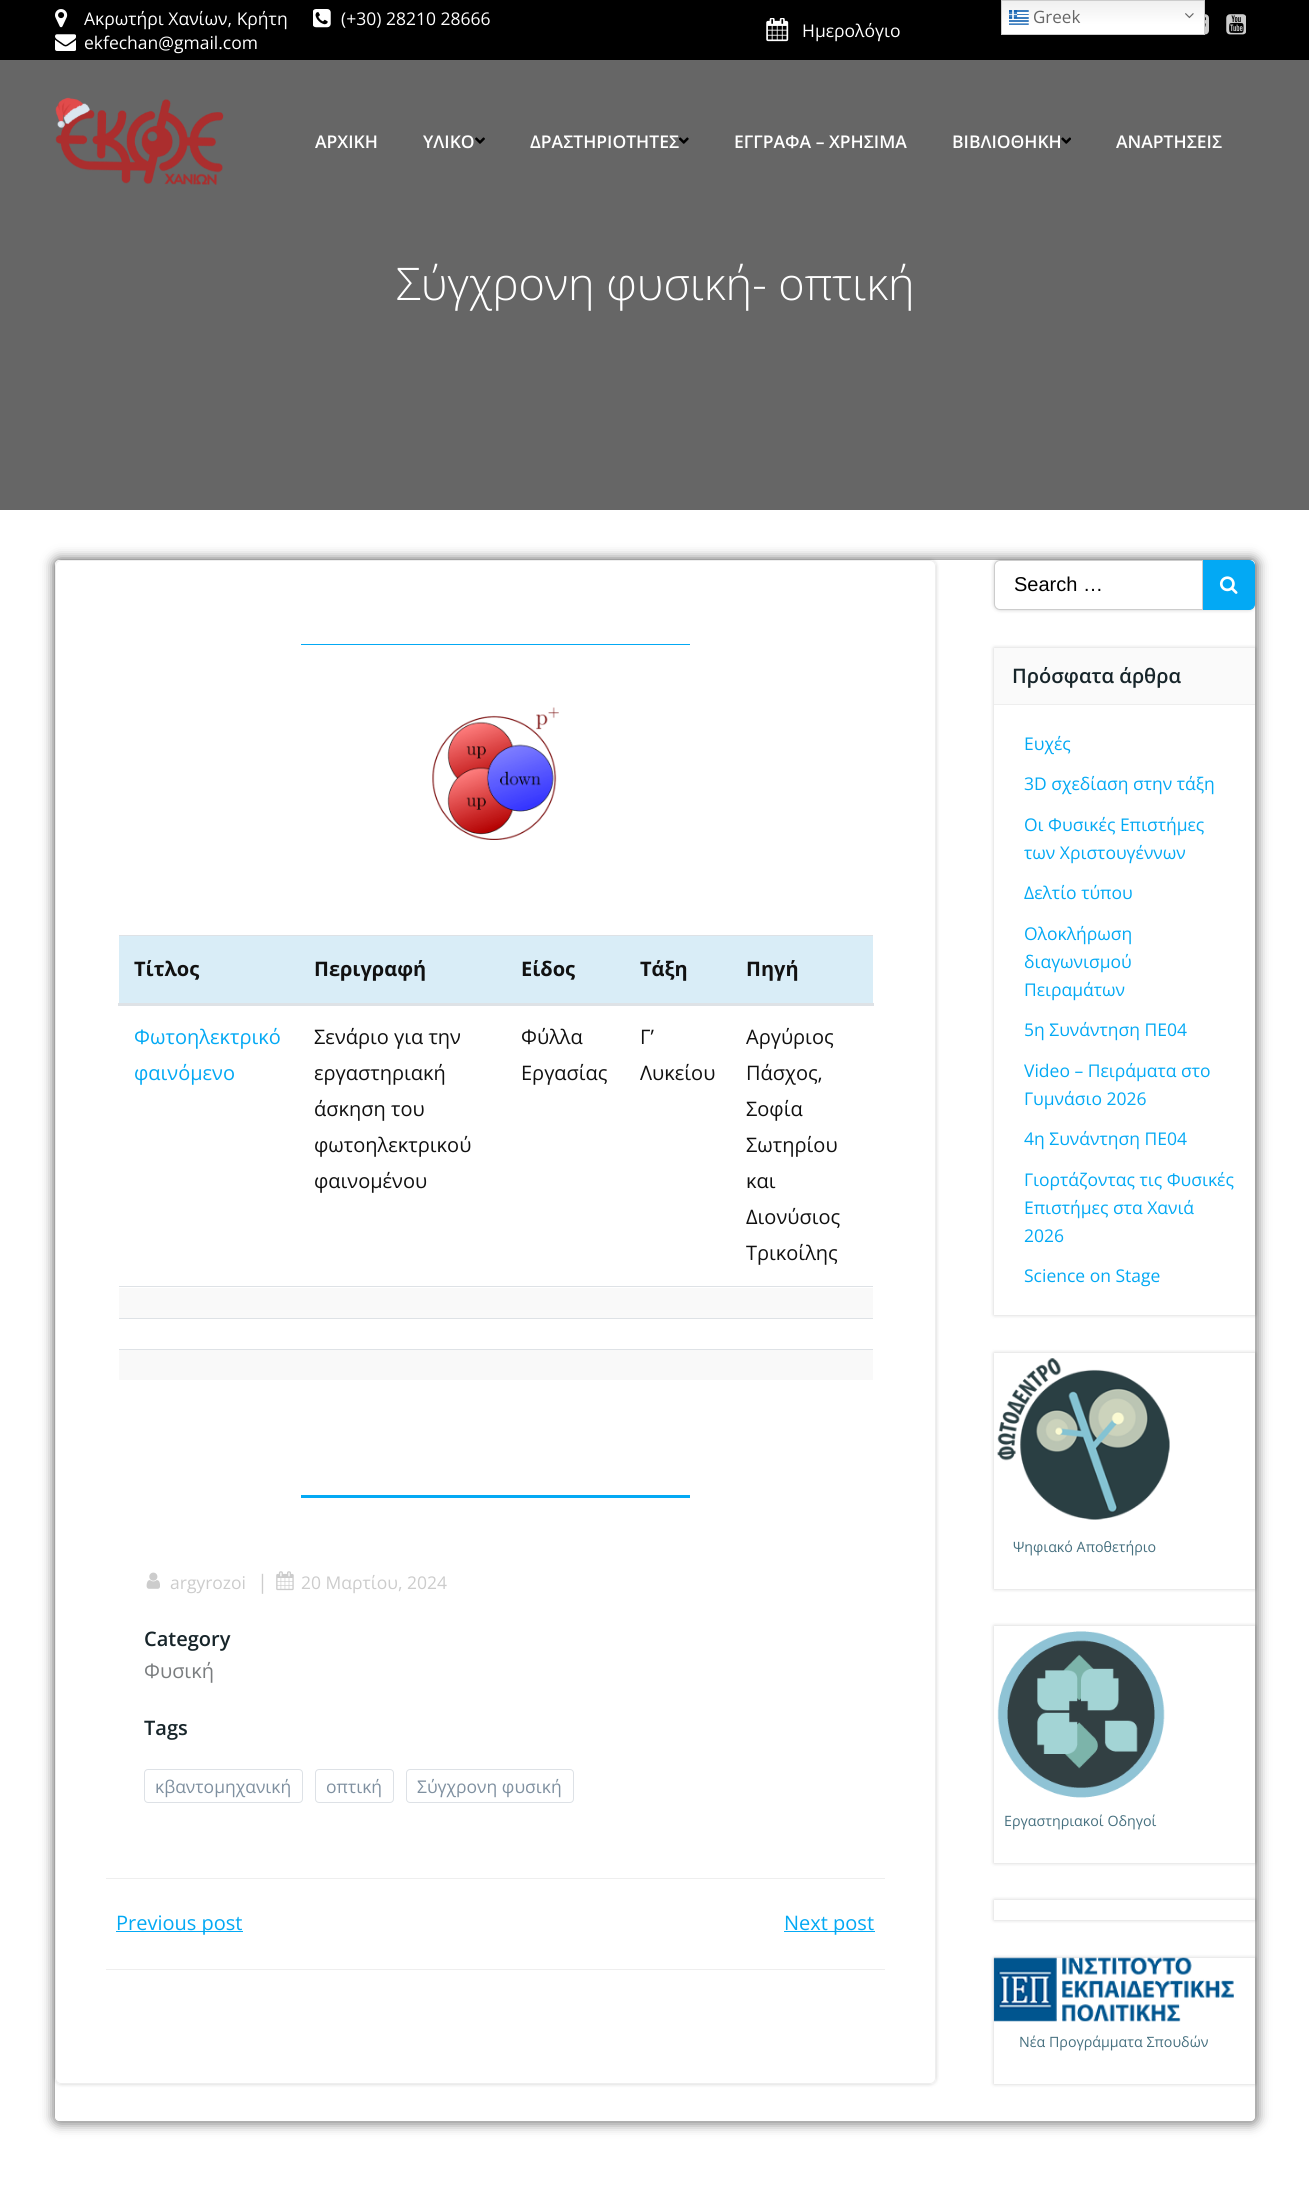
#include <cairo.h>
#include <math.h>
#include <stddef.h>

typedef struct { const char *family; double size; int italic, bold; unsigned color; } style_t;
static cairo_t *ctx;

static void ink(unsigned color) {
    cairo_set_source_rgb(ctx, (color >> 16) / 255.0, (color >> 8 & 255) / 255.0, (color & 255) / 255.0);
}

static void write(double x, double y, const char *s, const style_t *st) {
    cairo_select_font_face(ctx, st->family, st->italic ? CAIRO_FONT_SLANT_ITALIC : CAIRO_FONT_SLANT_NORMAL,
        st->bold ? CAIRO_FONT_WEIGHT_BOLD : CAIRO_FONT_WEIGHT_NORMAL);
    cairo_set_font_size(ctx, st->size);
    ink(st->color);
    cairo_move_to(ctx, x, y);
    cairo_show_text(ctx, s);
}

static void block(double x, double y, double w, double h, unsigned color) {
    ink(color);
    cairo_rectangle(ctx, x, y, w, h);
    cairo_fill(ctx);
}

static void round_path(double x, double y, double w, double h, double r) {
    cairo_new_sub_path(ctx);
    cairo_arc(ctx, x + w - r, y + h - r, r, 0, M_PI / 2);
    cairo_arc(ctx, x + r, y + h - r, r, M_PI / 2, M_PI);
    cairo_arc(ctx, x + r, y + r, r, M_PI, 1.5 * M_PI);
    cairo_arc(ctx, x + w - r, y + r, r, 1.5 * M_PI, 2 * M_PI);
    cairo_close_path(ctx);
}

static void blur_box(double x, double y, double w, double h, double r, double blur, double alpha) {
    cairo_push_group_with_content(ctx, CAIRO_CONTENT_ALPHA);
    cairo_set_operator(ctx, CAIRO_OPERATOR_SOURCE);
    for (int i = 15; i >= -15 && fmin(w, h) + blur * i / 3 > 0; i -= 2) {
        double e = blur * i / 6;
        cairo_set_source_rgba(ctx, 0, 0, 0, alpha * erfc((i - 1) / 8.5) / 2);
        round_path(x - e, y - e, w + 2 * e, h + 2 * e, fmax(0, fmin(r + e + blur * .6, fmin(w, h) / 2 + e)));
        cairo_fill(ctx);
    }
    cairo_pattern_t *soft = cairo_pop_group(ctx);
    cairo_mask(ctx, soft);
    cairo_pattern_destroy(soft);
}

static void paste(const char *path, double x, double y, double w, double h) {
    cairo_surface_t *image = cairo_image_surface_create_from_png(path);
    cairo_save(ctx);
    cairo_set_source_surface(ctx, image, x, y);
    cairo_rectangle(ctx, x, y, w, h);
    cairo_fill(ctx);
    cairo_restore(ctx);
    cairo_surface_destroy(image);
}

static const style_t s1 = {"Open Sans", 17.5, 0, 0, 0xffffff};
static const style_t s2 = {"Open Sans SemiBold", 17.5, 0, 0, 0xffffff};
static const style_t s3 = {"Open Sans Light", 45, 0, 0, 0xffffff};
static const style_t s4 = {"Open Sans", 20, 0, 1, 0x111111};
static const style_t s5 = {"Open Sans", 20, 0, 0, 0x03a9f4};
static const style_t s6 = {"Open Sans", 20, 0, 0, 0x111111};
static const style_t s7 = {"Open Sans", 17.5, 0, 0, 0xcccccc};
static const style_t s8 = {"Open Sans", 20, 0, 0, 0xcccccc};
static const style_t s9 = {"Open Sans SemiBold", 20, 0, 0, 0x17252a};
static const style_t s10 = {"Open Sans", 20, 0, 0, 0x7a7d7f};
static const style_t s11 = {"Open Sans", 17.5, 0, 0, 0x7f90a0};
static const style_t s12 = {"Liberation Sans", 20, 0, 0, 0x000000};
static const style_t s13 = {"Open Sans", 17.5, 0, 0, 0x03a9f4};
static const style_t s14 = {"Open Sans", 14.25, 0, 0, 0x46707f};
static const style_t s15 = {"Open Sans", 17, 0, 0, 0x666666};

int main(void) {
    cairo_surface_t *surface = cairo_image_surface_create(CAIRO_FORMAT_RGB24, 1309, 2186);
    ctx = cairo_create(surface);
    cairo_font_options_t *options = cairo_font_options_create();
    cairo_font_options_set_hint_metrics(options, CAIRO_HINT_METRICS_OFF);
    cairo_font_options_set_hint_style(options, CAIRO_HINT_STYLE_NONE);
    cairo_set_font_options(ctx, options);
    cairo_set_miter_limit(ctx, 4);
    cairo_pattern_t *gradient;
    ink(0xffffff);
    cairo_paint(ctx);
    block(0, 0, 1309, 60, 0x000000);
    paste("pic1.png", 55, 9, 13, 19);
    write(84, 25, "Ακρωτήρι Χανίων, Κρήτη", &s1);
    paste("pic2.png", 313, 9, 18, 19);
    write(341, 25, "(+30) 28210 28666", &s1);
    paste("pic3.png", 55, 34, 21, 17);
    write(84, 49, "ekfechan@gmail.com", &s1);
    paste("pic4.png", 766, 18, 23, 24);
    write(802, 37, "Ημερολόγιο", &s1);
    paste("pic5.png", 1205, 14, 4, 21);
    paste("pic6.png", 1226, 14, 20, 21);
    block(0, 60, 1309, 450, 0x666666);
    paste("pic7.png", 55, 97, 169, 88);
    write(315, 148, "ΑΡΧΙΚΗ", &s2);
    write(423, 148, "ΥΛΙΚΟ", &s2);
    paste("pic8.png", 475, 137, 10, 7);
    write(530, 148, "ΔΡΑΣΤΗΡΙΟΤΗΤΕΣ", &s2);
    paste("pic9.png", 679, 137, 10, 7);
    write(734, 148, "ΕΓΓΡΑΦΑ – ΧΡΗΣΙΜΑ", &s2);
    write(952, 148, "ΒΙΒΛΙΟΘΗΚΗ", &s2);
    paste("pic10.png", 1061, 137, 10, 7);
    write(1116, 148, "ΑΝΑΡΤΗΣΕΙΣ", &s2);
    write(396, 300, "Σύγχρονη φυσική- οπτική", &s3);
    cairo_save(ctx);
    cairo_set_fill_rule(ctx, CAIRO_FILL_RULE_EVEN_ODD);
    cairo_new_path(ctx);
    cairo_move_to(ctx, 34, 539);
    cairo_line_to(ctx, 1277, 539);
    cairo_line_to(ctx, 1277, 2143);
    cairo_line_to(ctx, 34, 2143);
    cairo_close_path(ctx);
    cairo_move_to(ctx, 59, 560);
    cairo_line_to(ctx, 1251, 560);
    cairo_curve_to(ctx, 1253, 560, 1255, 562, 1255, 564);
    cairo_line_to(ctx, 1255, 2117);
    cairo_curve_to(ctx, 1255, 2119, 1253, 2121, 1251, 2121);
    cairo_line_to(ctx, 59, 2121);
    cairo_curve_to(ctx, 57, 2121, 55, 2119, 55, 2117);
    cairo_line_to(ctx, 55, 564);
    cairo_curve_to(ctx, 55, 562, 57, 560, 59, 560);
    cairo_close_path(ctx);
    cairo_clip(ctx);
    ink(0x000000);
    blur_box(53, 558, 1205, 1566, 6, 6, 0.5);
    cairo_restore(ctx);
    cairo_save(ctx);
    cairo_set_fill_rule(ctx, CAIRO_FILL_RULE_EVEN_ODD);
    cairo_new_path(ctx);
    cairo_move_to(ctx, 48, 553);
    cairo_line_to(ctx, 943, 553);
    cairo_line_to(ctx, 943, 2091);
    cairo_line_to(ctx, 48, 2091);
    cairo_close_path(ctx);
    cairo_move_to(ctx, 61, 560);
    cairo_line_to(ctx, 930, 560);
    cairo_curve_to(ctx, 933.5, 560, 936, 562.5, 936, 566);
    cairo_line_to(ctx, 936, 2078);
    cairo_curve_to(ctx, 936, 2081.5, 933.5, 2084, 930, 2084);
    cairo_line_to(ctx, 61, 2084);
    cairo_curve_to(ctx, 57.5, 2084, 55, 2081.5, 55, 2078);
    cairo_line_to(ctx, 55, 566);
    cairo_curve_to(ctx, 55, 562.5, 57.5, 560, 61, 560);
    cairo_close_path(ctx);
    cairo_clip(ctx);
    ink(0x000000);
    blur_box(55, 560, 881, 1524, 6, 2, 0.2);
    cairo_restore(ctx);
    round_path(55.5, 560.5, 880, 1523, 5.5);
    ink(0xeeeeee);
    cairo_set_line_width(ctx, 1);
    cairo_stroke(ctx);
    block(301, 644, 389, 1, 0x03a9f4);
    paste("pic11.png", 432, 707, 127, 133);
    block(119, 936, 754, 67, 0xd9edf7);
    write(134, 976, "Τίτλος", &s4);
    write(314, 976, "Περιγραφή", &s4);
    write(521, 976, "Είδος", &s4);
    write(640, 976, "Τάξη", &s4);
    block(119, 935, 754, 1, 0xdee2e6);
    block(118, 1003, 756, 3, 0xdee2e6);
    write(746, 976, "Πηγή", &s4);
    write(134, 1044, "Φωτοηλεκτρικό", &s5);
    write(134, 1080, "φαινόμενο", &s5);
    write(314, 1044, "Σενάριο για την", &s6);
    write(314, 1080, "εργαστηριακή", &s6);
    write(314, 1116, "άσκηση του", &s6);
    write(314, 1152, "φωτοηλεκτρικού", &s6);
    write(314, 1188, "φαινομένου", &s6);
    write(521, 1044, "Φύλλα", &s6);
    write(521, 1080, "Εργασίας", &s6);
    write(640, 1044, "Γ’", &s6);
    write(640, 1080, "Λυκείου", &s6);
    write(746, 1044, "Αργύριος", &s6);
    write(746, 1080, "Πάσχος,", &s6);
    write(746, 1116, "Σοφία", &s6);
    write(746, 1152, "Σωτηρίου", &s6);
    write(746, 1188, "και", &s6);
    write(746, 1224, "Διονύσιος", &s6);
    write(746, 1260, "Τρικοίλης", &s6);
    block(119, 1286, 754, 1, 0xdee2e6);
    block(119, 1288, 754, 30, 0xf9f9f9);
    block(119, 1318, 754, 1, 0xdee2e6);
    block(119, 1349, 754, 1, 0xdee2e6);
    block(119, 1350, 754, 30, 0xf9f9f9);
    block(301, 1495, 389, 3, 0x03a9f4);
    paste("pic12.png", 146, 1572, 14, 17);
    write(170, 1589, "argyrozoi", &s7);
    write(257, 1589, "|", &s8);
    paste("pic13.png", 276, 1571, 18, 20);
    write(301, 1589, "20 Μαρτίου, 2024", &s7);
    write(144, 1646, "Category", &s9);
    write(144, 1678, "Φυσική", &s10);
    write(144, 1735, "Tags", &s9);
    round_path(144.5, 1769.5, 158, 33, 3.5);
    ink(0xdde1e6);
    cairo_stroke(ctx);
    write(155, 1793, "κβαντομηχανική", &s11);
    round_path(315.5, 1769.5, 78, 33, 3.5);
    ink(0xdde1e6);
    cairo_stroke(ctx);
    write(326, 1793, "οπτική", &s11);
    round_path(406.5, 1769.5, 167, 33, 3.5);
    ink(0xdde1e6);
    cairo_stroke(ctx);
    write(417, 1793, "Σύγχρονη φυσική", &s11);
    block(106, 1878, 779, 1, 0xeeeeee);
    block(106, 1969, 779, 1, 0xeeeeee);
    block(116, 1931, 127, 1, 0x03a9f4);
    write(116, 1930, "Previous post", &s5);
    block(784, 1931, 91, 1, 0x03a9f4);
    write(784, 1930, "Next post", &s5);
    ink(0x000000);
    blur_box(994, 560, 261, 50, 6, 2, 0.2);
    ink(0xffffff);
    cairo_new_path(ctx);
    cairo_move_to(ctx, 1000, 560.5);
    cairo_line_to(ctx, 1202.5, 560.5);
    cairo_line_to(ctx, 1202.5, 609.5);
    cairo_line_to(ctx, 1000, 609.5);
    cairo_curve_to(ctx, 997, 609.5, 994.5, 607, 994.5, 604);
    cairo_line_to(ctx, 994.5, 566);
    cairo_curve_to(ctx, 994.5, 563, 997, 560.5, 1000, 560.5);
    cairo_close_path(ctx);
    cairo_fill_preserve(ctx);
    ink(0xcccccc);
    cairo_stroke(ctx);
    write(1014, 591, "Search …", &s12);
    ink(0x03a9f4);
    cairo_new_path(ctx);
    cairo_move_to(ctx, 1203.5, 560.5);
    cairo_line_to(ctx, 1249, 560.5);
    cairo_curve_to(ctx, 1252, 560.5, 1254.5, 563, 1254.5, 566);
    cairo_line_to(ctx, 1254.5, 604);
    cairo_curve_to(ctx, 1254.5, 607, 1252, 609.5, 1249, 609.5);
    cairo_line_to(ctx, 1203.5, 609.5);
    cairo_close_path(ctx);
    cairo_fill_preserve(ctx);
    cairo_stroke(ctx);
    paste("pic14.png", 1219, 576, 19, 18);
    cairo_save(ctx);
    cairo_set_fill_rule(ctx, CAIRO_FILL_RULE_EVEN_ODD);
    cairo_new_path(ctx);
    cairo_move_to(ctx, 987, 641);
    cairo_line_to(ctx, 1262, 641);
    cairo_line_to(ctx, 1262, 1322);
    cairo_line_to(ctx, 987, 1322);
    cairo_close_path(ctx);
    cairo_move_to(ctx, 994, 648);
    cairo_line_to(ctx, 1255, 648);
    cairo_line_to(ctx, 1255, 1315);
    cairo_line_to(ctx, 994, 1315);
    cairo_close_path(ctx);
    cairo_clip(ctx);
    ink(0x000000);
    blur_box(994, 648, 261, 667, 0, 2, 0.2);
    cairo_restore(ctx);
    block(994, 648, 261, 56, 0xfafafa);
    block(994, 704, 261, 1, 0xeeeeee);
    write(1012, 683, "Πρόσφατα άρθρα", &s9);
    write(1024, 750, "Ευχές", &s13);
    write(1024, 790, "3D σχεδίαση στην τάξη", &s13);
    write(1024, 831, "Οι Φυσικές Επιστήμες", &s13);
    write(1024, 859, "των Χριστουγέννων", &s13);
    write(1024, 899, "Δελτίο τύπου", &s13);
    write(1024, 940, "Ολοκλήρωση", &s13);
    write(1024, 968, "διαγωνισμού", &s13);
    write(1024, 996, "Πειραμάτων", &s13);
    write(1024, 1036, "5η Συνάντηση ΠΕ04", &s13);
    write(1024, 1077, "Video – Πειράματα στο", &s13);
    write(1024, 1105, "Γυμνάσιο 2026", &s13);
    write(1024, 1145, "4η Συνάντηση ΠΕ04", &s13);
    write(1024, 1186, "Γιορτάζοντας τις Φυσικές", &s13);
    write(1024, 1214, "Επιστήμες στα Χανιά", &s13);
    write(1024, 1242, "2026", &s13);
    write(1024, 1282, "Science on Stage", &s13);
    cairo_save(ctx);
    cairo_set_fill_rule(ctx, CAIRO_FILL_RULE_EVEN_ODD);
    cairo_new_path(ctx);
    cairo_move_to(ctx, 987, 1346);
    cairo_line_to(ctx, 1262, 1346);
    cairo_line_to(ctx, 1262, 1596);
    cairo_line_to(ctx, 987, 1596);
    cairo_close_path(ctx);
    cairo_move_to(ctx, 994, 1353);
    cairo_line_to(ctx, 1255, 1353);
    cairo_line_to(ctx, 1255, 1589);
    cairo_line_to(ctx, 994, 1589);
    cairo_close_path(ctx);
    cairo_clip(ctx);
    ink(0x000000);
    blur_box(994, 1353, 261, 236, 0, 2, 0.2);
    cairo_restore(ctx);
    paste("pic15.png", 997, 1358, 173, 162);
    write(1013, 1552, "Ψηφιακό Αποθετήριο", &s14);
    cairo_save(ctx);
    cairo_set_fill_rule(ctx, CAIRO_FILL_RULE_EVEN_ODD);
    cairo_new_path(ctx);
    cairo_move_to(ctx, 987, 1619);
    cairo_line_to(ctx, 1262, 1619);
    cairo_line_to(ctx, 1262, 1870);
    cairo_line_to(ctx, 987, 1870);
    cairo_close_path(ctx);
    cairo_move_to(ctx, 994, 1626);
    cairo_line_to(ctx, 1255, 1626);
    cairo_line_to(ctx, 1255, 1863);
    cairo_line_to(ctx, 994, 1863);
    cairo_close_path(ctx);
    cairo_clip(ctx);
    ink(0x000000);
    blur_box(994, 1626, 261, 237, 0, 2, 0.2);
    cairo_restore(ctx);
    paste("pic16.png", 997, 1631, 168, 167);
    write(1004, 1826, "Εργαστηριακοί Οδηγοί", &s14);
    cairo_save(ctx);
    cairo_set_fill_rule(ctx, CAIRO_FILL_RULE_EVEN_ODD);
    cairo_new_path(ctx);
    cairo_move_to(ctx, 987, 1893);
    cairo_line_to(ctx, 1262, 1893);
    cairo_line_to(ctx, 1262, 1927);
    cairo_line_to(ctx, 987, 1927);
    cairo_close_path(ctx);
    cairo_move_to(ctx, 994, 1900);
    cairo_line_to(ctx, 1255, 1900);
    cairo_line_to(ctx, 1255, 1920);
    cairo_line_to(ctx, 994, 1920);
    cairo_close_path(ctx);
    cairo_clip(ctx);
    ink(0x000000);
    blur_box(994, 1900, 261, 20, 0, 2, 0.2);
    cairo_restore(ctx);
    cairo_save(ctx);
    cairo_set_fill_rule(ctx, CAIRO_FILL_RULE_EVEN_ODD);
    cairo_new_path(ctx);
    cairo_move_to(ctx, 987, 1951);
    cairo_line_to(ctx, 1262, 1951);
    cairo_line_to(ctx, 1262, 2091);
    cairo_line_to(ctx, 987, 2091);
    cairo_close_path(ctx);
    cairo_move_to(ctx, 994, 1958);
    cairo_line_to(ctx, 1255, 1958);
    cairo_line_to(ctx, 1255, 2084);
    cairo_line_to(ctx, 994, 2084);
    cairo_close_path(ctx);
    cairo_clip(ctx);
    ink(0x000000);
    blur_box(994, 1958, 261, 126, 0, 2, 0.2);
    cairo_restore(ctx);
    paste("pic17.png", 993, 1957, 241, 65);
    write(1019, 2047, "Νέα Προγράμματα Σπουδών", &s14);
    gradient = cairo_pattern_create_linear(1103, 0, 1103, 35);
    cairo_pattern_add_color_stop_rgba(gradient, 0, 0.937, 0.937, 0.937, 1);
    cairo_pattern_add_color_stop_rgba(gradient, 0.7, 1, 1, 1, 1);
    cairo_set_source(ctx, gradient);
    cairo_pattern_destroy(gradient);
    cairo_rectangle(ctx, 1002, 1, 202, 33);
    cairo_fill(ctx);
    cairo_rectangle(ctx, 1001.5, 0.5, 203, 34);
    ink(0xcccccc);
    cairo_stroke(ctx);
    paste("pic18.png", 1009, 10, 20, 15);
    write(1033, 23, "Greek", &s15);
    paste("pic19.png", 1185, 13, 9, 6);
    cairo_surface_write_to_png(surface, "screenshot.png");
    cairo_font_options_destroy(options);
    cairo_destroy(ctx);
    cairo_surface_destroy(surface);
    return 0;
}
